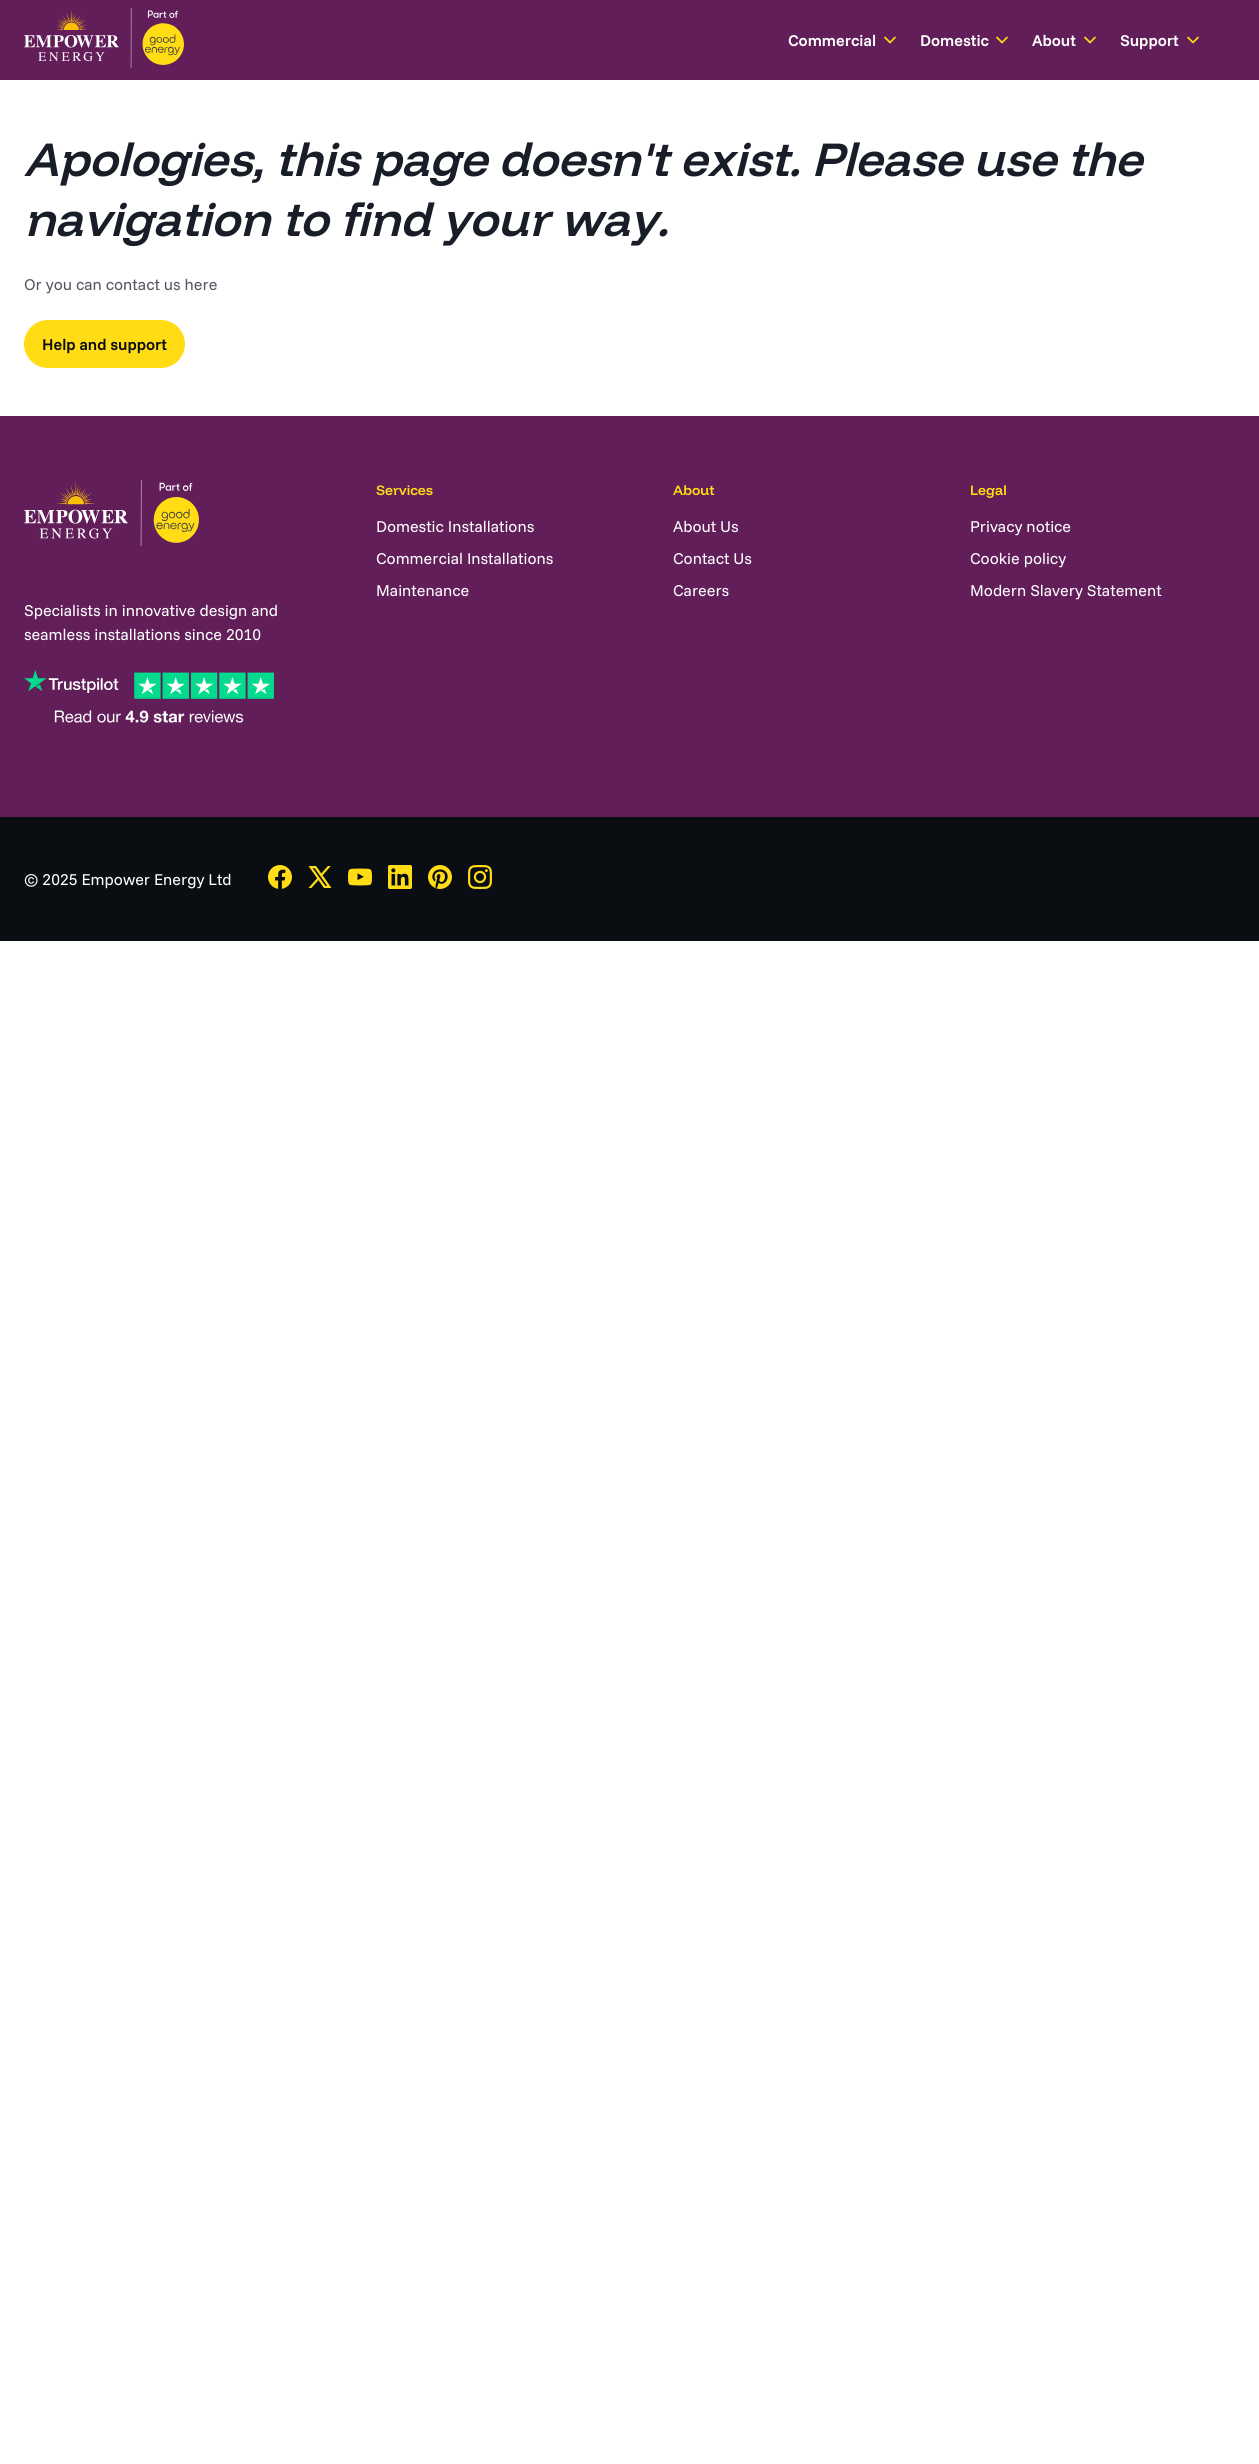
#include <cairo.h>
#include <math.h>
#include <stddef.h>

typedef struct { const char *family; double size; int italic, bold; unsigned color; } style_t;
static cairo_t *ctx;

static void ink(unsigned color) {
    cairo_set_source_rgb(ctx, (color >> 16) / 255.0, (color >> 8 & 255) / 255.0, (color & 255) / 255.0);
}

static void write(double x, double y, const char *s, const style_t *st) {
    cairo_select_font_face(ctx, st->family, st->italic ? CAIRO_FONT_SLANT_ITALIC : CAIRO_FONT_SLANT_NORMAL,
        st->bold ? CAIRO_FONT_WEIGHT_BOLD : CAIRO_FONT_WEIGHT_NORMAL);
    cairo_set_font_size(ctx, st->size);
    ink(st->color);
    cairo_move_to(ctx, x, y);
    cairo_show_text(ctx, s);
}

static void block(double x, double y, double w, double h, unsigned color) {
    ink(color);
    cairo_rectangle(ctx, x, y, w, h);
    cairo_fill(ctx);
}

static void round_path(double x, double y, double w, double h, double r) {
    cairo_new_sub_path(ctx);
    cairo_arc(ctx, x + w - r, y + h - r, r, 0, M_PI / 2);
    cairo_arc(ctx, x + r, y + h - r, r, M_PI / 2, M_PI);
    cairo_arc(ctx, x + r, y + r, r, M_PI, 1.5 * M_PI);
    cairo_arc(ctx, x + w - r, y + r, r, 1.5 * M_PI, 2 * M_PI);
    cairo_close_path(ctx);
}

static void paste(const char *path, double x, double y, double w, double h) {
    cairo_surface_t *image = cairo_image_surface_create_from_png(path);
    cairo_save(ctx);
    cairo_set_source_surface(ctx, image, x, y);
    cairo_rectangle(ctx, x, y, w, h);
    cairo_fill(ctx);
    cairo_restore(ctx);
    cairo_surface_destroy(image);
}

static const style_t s1 = {"Funnel Sans SemiBold", 16, 0, 0, 0xffffff};
static const style_t s2 = {"Funnel Display SemiBold", 48, 1, 0, 0x181d27};
static const style_t s3 = {"Funnel Sans", 16, 0, 0, 0x535862};
static const style_t s4 = {"Funnel Sans SemiBold", 16, 0, 0, 0x0a0d12};
static const style_t s5 = {"Funnel Display SemiBold", 14, 0, 0, 0xffdc14};
static const style_t s6 = {"Funnel Sans", 16, 0, 0, 0xffffff};

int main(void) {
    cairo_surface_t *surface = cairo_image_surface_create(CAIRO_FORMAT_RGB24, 1259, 2464);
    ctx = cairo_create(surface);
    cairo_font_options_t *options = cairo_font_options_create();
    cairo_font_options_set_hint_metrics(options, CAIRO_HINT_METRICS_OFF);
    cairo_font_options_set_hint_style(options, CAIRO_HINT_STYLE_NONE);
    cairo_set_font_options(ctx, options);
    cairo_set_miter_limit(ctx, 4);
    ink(0xffffff);
    cairo_paint(ctx);
    block(0, 0, 1259, 80, 0x611e59);
    paste("pic1.png", 24, 8, 160, 60);
    write(788, 46, "Commercial", &s1);
    cairo_new_path(ctx);
    cairo_move_to(ctx, 885, 37.5);
    cairo_line_to(ctx, 890, 42.5);
    cairo_line_to(ctx, 895, 37.5);
    ink(0xffdc14);
    cairo_set_line_width(ctx, 1.7);
    cairo_set_line_cap(ctx, CAIRO_LINE_CAP_ROUND);
    cairo_set_line_join(ctx, CAIRO_LINE_JOIN_ROUND);
    cairo_stroke(ctx);
    write(920, 46, "Domestic", &s1);
    cairo_new_path(ctx);
    cairo_move_to(ctx, 997, 37.5);
    cairo_line_to(ctx, 1002, 42.5);
    cairo_line_to(ctx, 1007, 37.5);
    ink(0xffdc14);
    cairo_stroke(ctx);
    write(1032, 46, "About", &s1);
    cairo_new_path(ctx);
    cairo_move_to(ctx, 1085, 37.5);
    cairo_line_to(ctx, 1090, 42.5);
    cairo_line_to(ctx, 1095, 37.5);
    ink(0xffdc14);
    cairo_stroke(ctx);
    write(1120, 46, "Support", &s1);
    cairo_new_path(ctx);
    cairo_move_to(ctx, 1188, 37.5);
    cairo_line_to(ctx, 1193, 42.5);
    cairo_line_to(ctx, 1198, 37.5);
    ink(0xffdc14);
    cairo_stroke(ctx);
    write(24, 176, "Apologies, this page doesn't exist. Please use the", &s2);
    write(24, 236, "navigation to find your way.", &s2);
    write(24, 290, "Or you can contact us here", &s3);
    ink(0xffdc14);
    round_path(24, 320, 161, 48, 24);
    cairo_fill(ctx);
    write(42, 350, "Help and support", &s4);
    block(0, 416, 1259, 401, 0x611e59);
    write(376, 495, "Services", &s5);
    write(376, 532, "Domestic Installations", &s6);
    write(376, 564, "Commercial Installations", &s6);
    write(376, 596, "Maintenance", &s6);
    write(673, 495, "About", &s5);
    write(673, 532, "About Us", &s6);
    write(673, 564, "Contact Us", &s6);
    write(673, 596, "Careers", &s6);
    write(970, 495, "Legal", &s5);
    write(970, 532, "Privacy notice", &s6);
    write(970, 564, "Cookie policy", &s6);
    write(970, 596, "Modern Slavery Statement", &s6);
    paste("pic2.png", 24, 480, 175, 66);
    write(24, 616, "Specialists in innovative design and", &s6);
    write(24, 640, "seamless installations since 2010", &s6);
    paste("pic3.png", 24, 670, 250, 53);
    block(0, 817, 1259, 124, 0x0a0d12);
    write(24, 885, "© 2025 Empower Energy Ltd", &s6);
    paste("pic4.png", 268, 865, 24, 24);
    paste("pic5.png", 308, 866, 24, 22);
    paste("pic6.png", 348, 868, 24, 18);
    paste("pic7.png", 388, 865, 24, 24);
    paste("pic8.png", 428, 865, 24, 24);
    paste("pic9.png", 468, 865, 24, 24);
    cairo_surface_write_to_png(surface, "screenshot.png");
    cairo_font_options_destroy(options);
    cairo_destroy(ctx);
    cairo_surface_destroy(surface);
    return 0;
}
